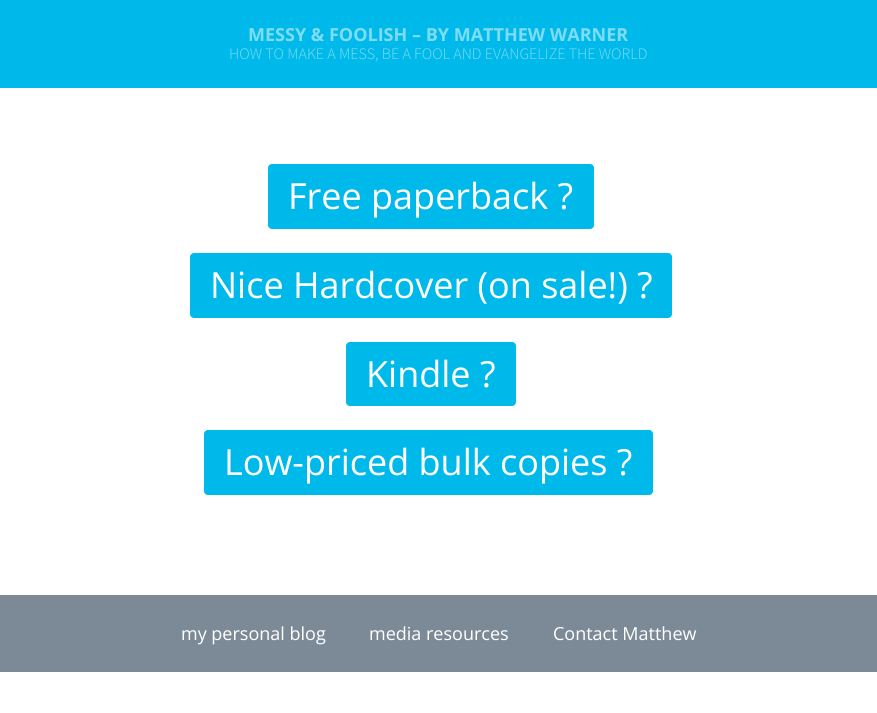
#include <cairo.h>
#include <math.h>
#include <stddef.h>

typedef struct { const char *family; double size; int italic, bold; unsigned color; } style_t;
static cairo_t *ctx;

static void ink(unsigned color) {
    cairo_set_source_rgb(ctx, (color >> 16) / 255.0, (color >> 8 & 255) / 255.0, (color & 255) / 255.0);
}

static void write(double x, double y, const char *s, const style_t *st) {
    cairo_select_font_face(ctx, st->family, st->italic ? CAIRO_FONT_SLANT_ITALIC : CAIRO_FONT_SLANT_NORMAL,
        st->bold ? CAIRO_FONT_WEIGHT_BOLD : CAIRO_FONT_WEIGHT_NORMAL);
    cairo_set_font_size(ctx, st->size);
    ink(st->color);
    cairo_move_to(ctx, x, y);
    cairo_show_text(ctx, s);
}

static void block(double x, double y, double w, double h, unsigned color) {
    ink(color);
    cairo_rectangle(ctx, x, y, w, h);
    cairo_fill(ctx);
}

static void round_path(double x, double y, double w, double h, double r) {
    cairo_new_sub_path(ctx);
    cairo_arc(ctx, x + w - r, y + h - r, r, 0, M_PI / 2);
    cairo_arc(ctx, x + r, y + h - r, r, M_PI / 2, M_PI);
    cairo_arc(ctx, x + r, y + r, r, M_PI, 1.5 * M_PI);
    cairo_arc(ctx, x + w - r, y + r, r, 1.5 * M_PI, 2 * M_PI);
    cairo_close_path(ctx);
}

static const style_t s1 = {"Open Sans", 18, 0, 1, 0x80dcf5};
static const style_t s2 = {"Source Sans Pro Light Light", 16, 0, 0, 0x80dcf5};
static const style_t s3 = {"Open Sans", 36, 0, 0, 0xffffff};
static const style_t s4 = {"Open Sans", 18, 0, 0, 0xffffff};

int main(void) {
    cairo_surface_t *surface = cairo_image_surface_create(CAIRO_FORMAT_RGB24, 877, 713);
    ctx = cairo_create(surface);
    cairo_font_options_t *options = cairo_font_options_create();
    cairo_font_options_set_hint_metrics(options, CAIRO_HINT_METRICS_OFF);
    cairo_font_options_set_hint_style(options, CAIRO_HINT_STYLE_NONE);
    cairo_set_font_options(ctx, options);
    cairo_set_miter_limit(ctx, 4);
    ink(0xffffff);
    cairo_paint(ctx);
    block(0, 0, 877, 88, 0x00b9eb);
    write(248, 41, "MESSY & FOOLISH – BY MATTHEW WARNER", &s1);
    write(229, 59, "HOW TO MAKE A MESS, BE A FOOL AND EVANGELIZE THE WORLD", &s2);
    ink(0x00b9eb);
    round_path(268, 164, 326, 65, 4);
    cairo_fill(ctx);
    write(288, 209, "Free paperback ?", &s3);
    ink(0x00b9eb);
    round_path(190, 253, 482, 65, 4);
    cairo_fill(ctx);
    write(210, 298, "Nice Hardcover (on sale!) ?", &s3);
    ink(0x00b9eb);
    round_path(346, 342, 170, 64, 4);
    cairo_fill(ctx);
    write(366, 387, "Kindle ?", &s3);
    ink(0x00b9eb);
    round_path(204, 430, 449, 65, 4);
    cairo_fill(ctx);
    write(224, 475, "Low-priced bulk copies ?", &s3);
    block(0, 595, 877, 77, 0x7c8a97);
    write(181, 640, "my personal blog", &s4);
    write(369, 640, "media resources", &s4);
    write(553, 640, "Contact Matthew", &s4);
    cairo_surface_write_to_png(surface, "screenshot.png");
    cairo_font_options_destroy(options);
    cairo_destroy(ctx);
    cairo_surface_destroy(surface);
    return 0;
}
